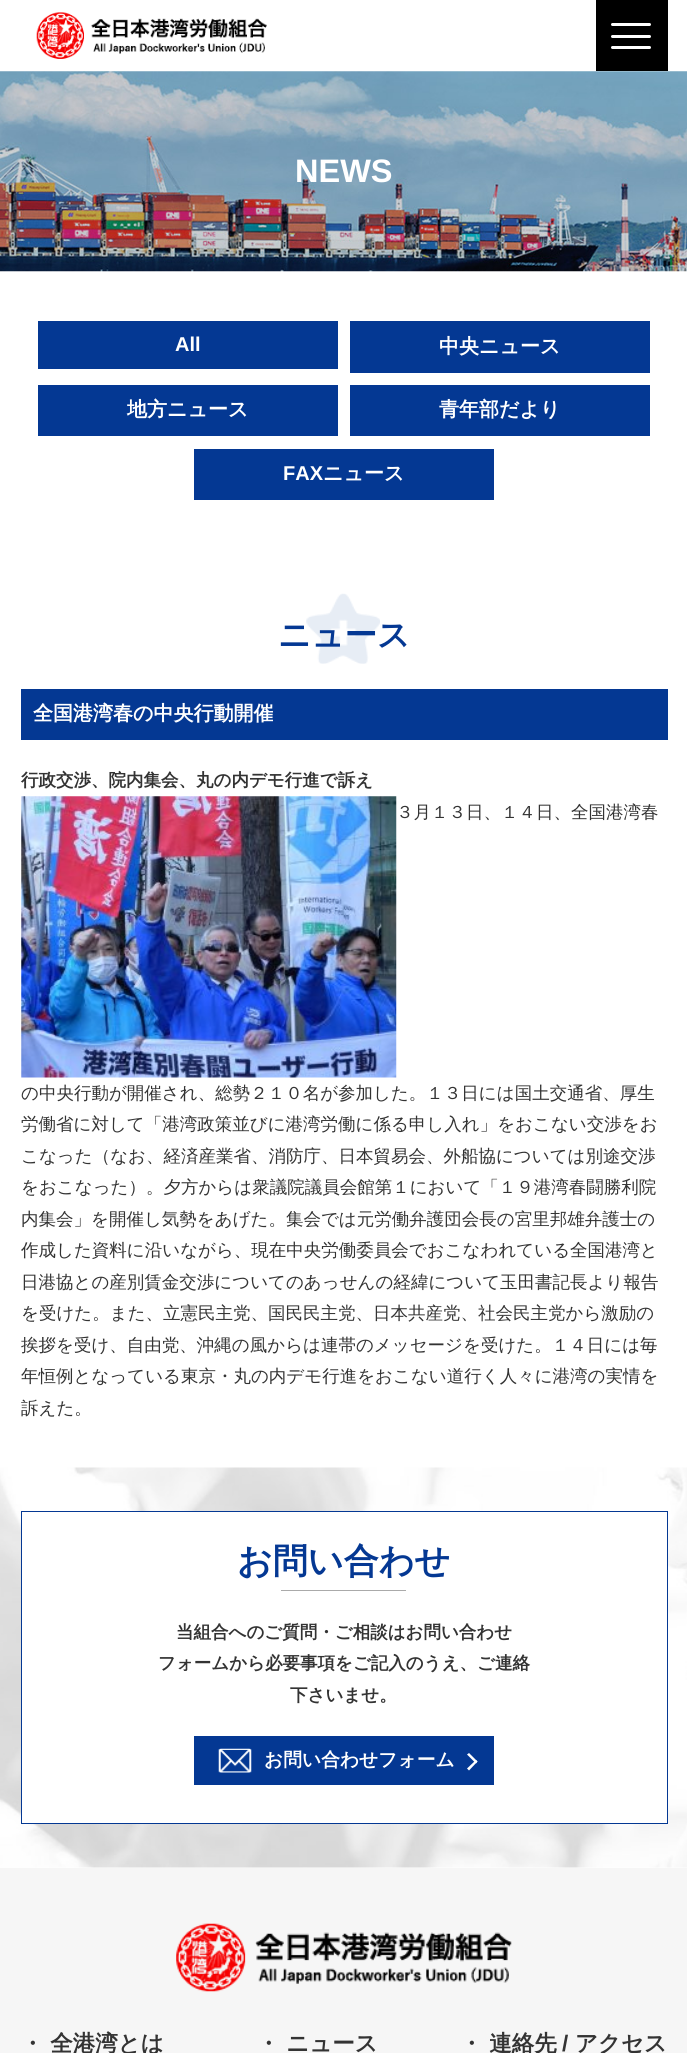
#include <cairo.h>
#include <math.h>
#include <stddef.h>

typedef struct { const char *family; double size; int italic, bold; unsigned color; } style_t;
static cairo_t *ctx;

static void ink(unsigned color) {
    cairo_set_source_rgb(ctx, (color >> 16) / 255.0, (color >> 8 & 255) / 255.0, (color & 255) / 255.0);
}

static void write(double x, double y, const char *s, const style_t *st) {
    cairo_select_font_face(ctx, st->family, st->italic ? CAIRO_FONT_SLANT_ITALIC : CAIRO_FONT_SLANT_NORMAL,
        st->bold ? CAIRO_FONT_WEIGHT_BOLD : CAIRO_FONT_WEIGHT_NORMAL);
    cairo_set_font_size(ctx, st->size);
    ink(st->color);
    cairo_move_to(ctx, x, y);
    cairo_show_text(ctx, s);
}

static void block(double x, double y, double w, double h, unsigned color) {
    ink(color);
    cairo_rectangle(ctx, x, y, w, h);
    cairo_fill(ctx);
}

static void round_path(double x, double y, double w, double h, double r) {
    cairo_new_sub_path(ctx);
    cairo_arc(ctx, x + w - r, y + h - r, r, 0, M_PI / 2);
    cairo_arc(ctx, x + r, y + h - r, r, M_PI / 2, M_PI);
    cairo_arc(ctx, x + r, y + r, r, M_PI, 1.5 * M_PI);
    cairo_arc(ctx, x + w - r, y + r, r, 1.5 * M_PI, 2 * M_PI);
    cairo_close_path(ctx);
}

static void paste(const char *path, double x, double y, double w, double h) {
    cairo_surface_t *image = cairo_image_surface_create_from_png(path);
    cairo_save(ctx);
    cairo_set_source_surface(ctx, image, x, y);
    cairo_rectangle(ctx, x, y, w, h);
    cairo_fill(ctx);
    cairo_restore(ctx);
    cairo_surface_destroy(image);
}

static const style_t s1 = {"Liberation Sans", 32.5, 0, 1, 0xffffff};
static const style_t s2 = {"Liberation Sans", 20, 0, 1, 0xffffff};
static const style_t s3 = {"WenQuanYi Zen Hei", 20, 0, 1, 0xffffff};
static const style_t s4 = {"WenQuanYi Zen Hei", 32.5, 0, 1, 0x043893};
static const style_t s5 = {"WenQuanYi Zen Hei", 17.5, 0, 1, 0x333333};
static const style_t s6 = {"WenQuanYi Zen Hei Medium", 17.5, 0, 0, 0x333333};
static const style_t s7 = {"WenQuanYi Zen Hei", 35, 0, 1, 0x043893};
static const style_t s8 = {"WenQuanYi Zen Hei", 18.75, 0, 1, 0xffffff};
static const style_t s9 = {"WenQuanYi Zen Hei", 22.5, 0, 1, 0x333333};
static const style_t s10 = {"Liberation Sans", 22.5, 0, 1, 0x333333};

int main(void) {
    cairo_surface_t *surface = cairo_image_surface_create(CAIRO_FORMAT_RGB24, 687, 2053);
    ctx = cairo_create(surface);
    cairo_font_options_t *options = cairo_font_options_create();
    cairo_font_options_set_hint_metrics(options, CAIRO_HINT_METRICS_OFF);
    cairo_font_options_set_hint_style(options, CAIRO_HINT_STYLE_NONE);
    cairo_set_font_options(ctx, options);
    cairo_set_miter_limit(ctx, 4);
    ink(0xffffff);
    cairo_paint(ctx);
    paste("pic1.png", 36, 12, 231, 47);
    block(596, 0, 72, 71, 0x000000);
    ink(0xffffff);
    round_path(611, 23, 40, 3, 1.5);
    cairo_fill(ctx);
    round_path(611, 35, 40, 3, 1.5);
    cairo_fill(ctx);
    round_path(611, 46, 40, 3, 1.5);
    cairo_fill(ctx);
    paste("pic2.png", 0, 71, 687, 201);
    write(295, 182, "NEWS", &s1);
    block(38, 321, 300, 48, 0x043893);
    write(175, 351, "All", &s2);
    block(350, 321, 300, 52, 0x043893);
    write(439, 353, "中央ニュース", &s3);
    block(38, 385, 300, 51, 0x043893);
    write(127, 416, "地方ニュース", &s3);
    block(350, 385, 300, 51, 0x043893);
    write(439, 416, "青年部だより", &s3);
    block(194, 449, 300, 51, 0x043893);
    write(283, 480, "FAX", &s2);
    write(323, 480, "ニュース", &s3);
    paste("pic3.png", 306, 593, 74, 71);
    write(278, 646, "ニュース", &s4);
    block(21, 689, 647, 51, 0x043893);
    write(33, 720, "全国港湾春の中央行動開催", &s3);
    write(21, 786, "行政交渉、院内集会、丸の内デモ行進で訴え", &s5);
    paste("pic4.png", 21, 796, 376, 282);
    write(396, 818, "３月１３日、１４日、全国港湾春", &s6);
    write(21, 1099, "の中央行動が開催され、総勢２１０名が参加した。１３日には国土交通省、厚生", &s6);
    write(21, 1130, "労働省に対して「港湾政策並びに港湾労働に係る申し入れ」をおこない交渉をお", &s6);
    write(21, 1162, "こなった（なお、経済産業省、消防庁、日本貿易会、外船協については別途交渉", &s6);
    write(21, 1193, "をおこなった）。夕方からは衆議院議員会館第１において「１９港湾春闘勝利院", &s6);
    write(21, 1225, "内集会」を開催し気勢をあげた。集会では元労働弁護団会長の宮里邦雄弁護士の", &s6);
    write(21, 1256, "作成した資料に沿いながら、現在中央労働委員会でおこなわれている全国港湾と", &s6);
    write(21, 1288, "日港協との産別賃金交渉についてのあっせんの経緯について玉田書記長より報告", &s6);
    write(21, 1319, "を受けた。また、立憲民主党、国民民主党、日本共産党、社会民主党から激励の", &s6);
    write(21, 1351, "挨拶を受け、自由党、沖縄の風からは連帯のメッセージを受けた。１４日には毎", &s6);
    write(21, 1382, "年恒例となっている東京・丸の内デモ行進をおこない道行く人々に港湾の実情を", &s6);
    write(21, 1414, "訴えた。", &s6);
    paste("pic5.png", 0, 1467, 687, 401);
    ink(0xffffff);
    cairo_rectangle(ctx, 21.5, 1511.5, 646, 312);
    cairo_fill_preserve(ctx);
    ink(0x043893);
    cairo_set_line_width(ctx, 1);
    cairo_stroke(ctx);
    write(237, 1573, "お問い合わせ", &s7);
    block(281, 1590, 125, 1, 0xaaaaaa);
    write(176, 1638, "当組合へのご質問・ご相談はお問い合わせ", &s5);
    write(158, 1669, "フォームから必要事項をご記入のうえ、ご連絡", &s5);
    write(290, 1701, "下さいませ。", &s5);
    block(194, 1736, 300, 49, 0x043893);
    paste("pic6.png", 218, 1748, 34, 25);
    write(264, 1766, "お問い合わせフォーム", &s8);
    cairo_new_path(ctx);
    cairo_move_to(ctx, 469, 1753);
    cairo_line_to(ctx, 477.5, 1761.5);
    cairo_line_to(ctx, 476, 1763.5);
    cairo_line_to(ctx, 467, 1754.5);
    cairo_close_path(ctx);
    cairo_fill(ctx);
    cairo_new_path(ctx);
    cairo_move_to(ctx, 476, 1760);
    cairo_line_to(ctx, 477.5, 1761.5);
    cairo_line_to(ctx, 469, 1770.5);
    cairo_line_to(ctx, 467, 1768.5);
    cairo_close_path(ctx);
    cairo_fill(ctx);
    block(0, 1868, 687, 185, 0xf6f6f6);
    paste("pic7.png", 176, 1923, 336, 69);
    write(21, 2051, "・ 全港湾とは", &s9);
    write(257, 2051, "・ ニュース", &s9);
    write(460, 2051, "・ 連絡先", &s9);
    write(562, 2051, "/", &s10);
    write(575, 2051, "アクセス", &s9);
    cairo_surface_write_to_png(surface, "screenshot.png");
    cairo_font_options_destroy(options);
    cairo_destroy(ctx);
    cairo_surface_destroy(surface);
    return 0;
}
